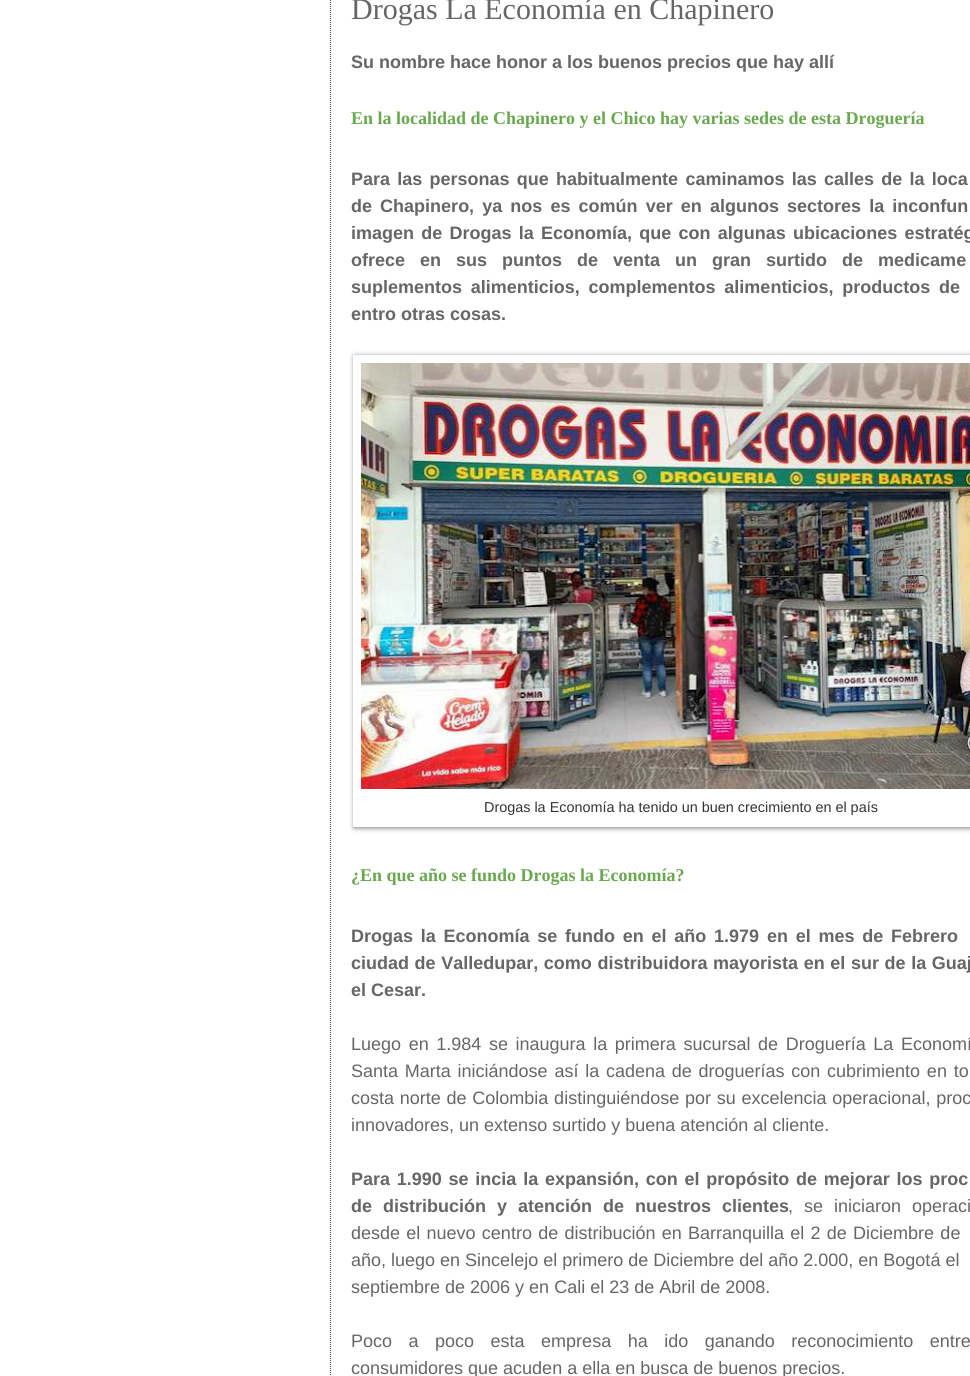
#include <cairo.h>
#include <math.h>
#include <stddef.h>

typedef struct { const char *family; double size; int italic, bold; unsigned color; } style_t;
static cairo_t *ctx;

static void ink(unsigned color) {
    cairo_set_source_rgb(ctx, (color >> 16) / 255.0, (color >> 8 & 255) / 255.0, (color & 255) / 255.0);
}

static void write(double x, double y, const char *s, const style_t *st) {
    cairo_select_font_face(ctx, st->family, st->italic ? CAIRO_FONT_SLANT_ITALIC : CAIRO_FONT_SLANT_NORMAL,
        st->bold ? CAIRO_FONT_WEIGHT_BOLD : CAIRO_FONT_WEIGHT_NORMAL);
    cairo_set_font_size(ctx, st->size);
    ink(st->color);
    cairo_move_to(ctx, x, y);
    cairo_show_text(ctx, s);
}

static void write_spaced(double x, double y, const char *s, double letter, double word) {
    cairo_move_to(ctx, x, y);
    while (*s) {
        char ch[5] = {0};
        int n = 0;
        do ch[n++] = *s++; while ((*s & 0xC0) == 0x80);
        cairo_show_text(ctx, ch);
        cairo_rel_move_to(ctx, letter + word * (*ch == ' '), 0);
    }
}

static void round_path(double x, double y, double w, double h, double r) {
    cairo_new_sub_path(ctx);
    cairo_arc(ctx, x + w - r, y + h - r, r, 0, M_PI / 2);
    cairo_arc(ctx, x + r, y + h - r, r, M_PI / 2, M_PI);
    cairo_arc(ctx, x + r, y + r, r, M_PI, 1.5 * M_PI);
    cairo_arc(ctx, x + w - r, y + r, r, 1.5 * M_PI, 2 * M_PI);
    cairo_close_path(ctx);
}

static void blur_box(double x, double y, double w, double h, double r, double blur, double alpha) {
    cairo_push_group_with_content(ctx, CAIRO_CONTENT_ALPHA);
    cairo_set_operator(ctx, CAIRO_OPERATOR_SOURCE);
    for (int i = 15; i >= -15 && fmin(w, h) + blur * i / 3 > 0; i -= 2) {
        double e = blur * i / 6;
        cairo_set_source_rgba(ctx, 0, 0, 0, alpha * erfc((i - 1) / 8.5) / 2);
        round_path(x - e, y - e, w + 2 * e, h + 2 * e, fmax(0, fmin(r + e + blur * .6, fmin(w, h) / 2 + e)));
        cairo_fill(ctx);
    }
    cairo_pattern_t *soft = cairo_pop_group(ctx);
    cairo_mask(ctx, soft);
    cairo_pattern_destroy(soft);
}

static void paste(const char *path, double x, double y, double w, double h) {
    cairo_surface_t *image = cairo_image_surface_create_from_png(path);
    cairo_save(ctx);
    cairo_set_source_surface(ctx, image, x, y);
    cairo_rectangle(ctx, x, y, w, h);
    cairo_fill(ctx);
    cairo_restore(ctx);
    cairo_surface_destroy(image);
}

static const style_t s1 = {"Liberation Serif", 30, 0, 0, 0x666666};
static const style_t s2 = {"Liberation Sans", 18, 0, 1, 0x666666};
static const style_t s3 = {"Liberation Serif", 18, 0, 1, 0x6aa84f};
static const style_t s4 = {"Liberation Sans", 14.4, 0, 0, 0x333333};
static const style_t s5 = {"Liberation Sans", 18, 0, 0, 0x666666};

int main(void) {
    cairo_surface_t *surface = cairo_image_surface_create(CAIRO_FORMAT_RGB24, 970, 1376);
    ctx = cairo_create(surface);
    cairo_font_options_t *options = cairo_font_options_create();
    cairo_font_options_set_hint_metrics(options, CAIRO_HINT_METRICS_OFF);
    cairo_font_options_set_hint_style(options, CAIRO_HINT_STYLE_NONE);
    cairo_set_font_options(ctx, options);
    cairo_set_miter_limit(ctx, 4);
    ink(0xffffff);
    cairo_paint(ctx);
    cairo_new_path(ctx);
    cairo_move_to(ctx, 330.5, -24);
    cairo_line_to(ctx, 330.5, 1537);
    ink(0x444444);
    cairo_set_line_width(ctx, 1);
    cairo_set_dash(ctx, (double[]){1, 1}, 2, 0);
    cairo_stroke(ctx);
    write(351, 19, "Drogas La Economía en Chapinero", &s1);
    write(351, 68, "Su nombre hace honor a los buenos precios que hay allí", &s2);
    write(351, 124, "En la localidad de Chapinero y el Chico hay varias sedes de esta Droguería", &s3);
    cairo_select_font_face(ctx, "Liberation Sans", CAIRO_FONT_SLANT_NORMAL, CAIRO_FONT_WEIGHT_BOLD);
    ink(0x666666);
    write_spaced(351, 185, "Para las personas que habitualmente caminamos las calles de la loca", 0, 2.25);
    write_spaced(351, 212, "de Chapinero, ya nos es común ver en algunos sectores la inconfun", 0, 3.1);
    write_spaced(351, 239, "imagen de Drogas la Economía, que con algunas ubicaciones estratég", 0, 2.25);
    write_spaced(351, 266, "ofrece en sus puntos de venta un gran surtido de medicame", 0, 10);
    write_spaced(351, 293, "suplementos alimenticios, complementos alimenticios, productos de", 0, 3.75);
    write(351, 320, "entro otras cosas.", &s2);
    cairo_save(ctx);
    cairo_set_fill_rule(ctx, CAIRO_FILL_RULE_EVEN_ODD);
    cairo_new_path(ctx);
    cairo_move_to(ctx, 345, 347);
    cairo_line_to(ctx, 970, 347);
    cairo_line_to(ctx, 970, 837);
    cairo_line_to(ctx, 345, 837);
    cairo_close_path(ctx);
    cairo_move_to(ctx, 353, 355);
    cairo_line_to(ctx, 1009, 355);
    cairo_line_to(ctx, 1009, 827);
    cairo_line_to(ctx, 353, 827);
    cairo_close_path(ctx);
    cairo_clip(ctx);
    ink(0x000000);
    blur_box(354, 356, 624, 472, 0, 2.5, 0.5);
    cairo_restore(ctx);
    paste("pic1.png", 361, 363, 609, 426);
    write(484, 812, "Drogas la Economía ha tenido un buen crecimiento en el país", &s4);
    write(351, 881, "¿En que año se fundo Drogas la Economía?", &s3);
    cairo_select_font_face(ctx, "Liberation Sans", CAIRO_FONT_SLANT_NORMAL, CAIRO_FONT_WEIGHT_BOLD);
    ink(0x666666);
    write_spaced(351, 942, "Drogas la Economía se fundo en el año 1.979 en el mes de Febrero", 0, 2.75);
    write_spaced(351, 969, "ciudad de Valledupar, como distribuidora mayorista en el sur de la Guaj", 0, 0.6);
    write(351, 996, "el Cesar.", &s2);
    cairo_select_font_face(ctx, "Liberation Sans", CAIRO_FONT_SLANT_NORMAL, CAIRO_FONT_WEIGHT_NORMAL);
    write_spaced(351, 1050, "Luego en 1.984 se inaugura la primera sucursal de Droguería La Economí", 0, 2.6);
    write_spaced(351, 1077, "Santa Marta iniciándose así la cadena de droguerías con cubrimiento en to", 0, 1.75);
    write_spaced(351, 1104, "costa norte de Colombia distinguiéndose por su excelencia operacional, proc", 0, 0.75);
    write(351, 1131, "innovadores, un extenso surtido y buena atención al cliente.", &s5);
    cairo_select_font_face(ctx, "Liberation Sans", CAIRO_FONT_SLANT_NORMAL, CAIRO_FONT_WEIGHT_BOLD);
    write_spaced(351, 1185, "Para 1.990 se incia la expansión, con el propósito de mejorar los proc", 0, 1.75);
    write_spaced(351, 1212, "de distribución y atención de nuestros clientes", 0, 6);
    cairo_select_font_face(ctx, "Liberation Sans", CAIRO_FONT_SLANT_NORMAL, CAIRO_FONT_WEIGHT_NORMAL);
    write_spaced(788, 1212, ", se iniciaron operaci", 0, 6);
    write_spaced(351, 1239, "desde el nuevo centro de distribución en Barranquilla el 2 de Diciembre de", 0, 1.25);
    write(351, 1266, "año, luego en Sincelejo el primero de Diciembre del año 2.000, en Bogotá el", &s5);
    write(351, 1293, "septiembre de 2006 y en Cali el 23 de Abril de 2008.", &s5);
    write_spaced(351, 1347, "Poco a poco esta empresa ha ido ganando reconocimiento entre", 0, 11.5);
    write(351, 1374, "consumidores que acuden a ella en busca de buenos precios.", &s5);
    cairo_surface_write_to_png(surface, "screenshot.png");
    cairo_font_options_destroy(options);
    cairo_destroy(ctx);
    cairo_surface_destroy(surface);
    return 0;
}
